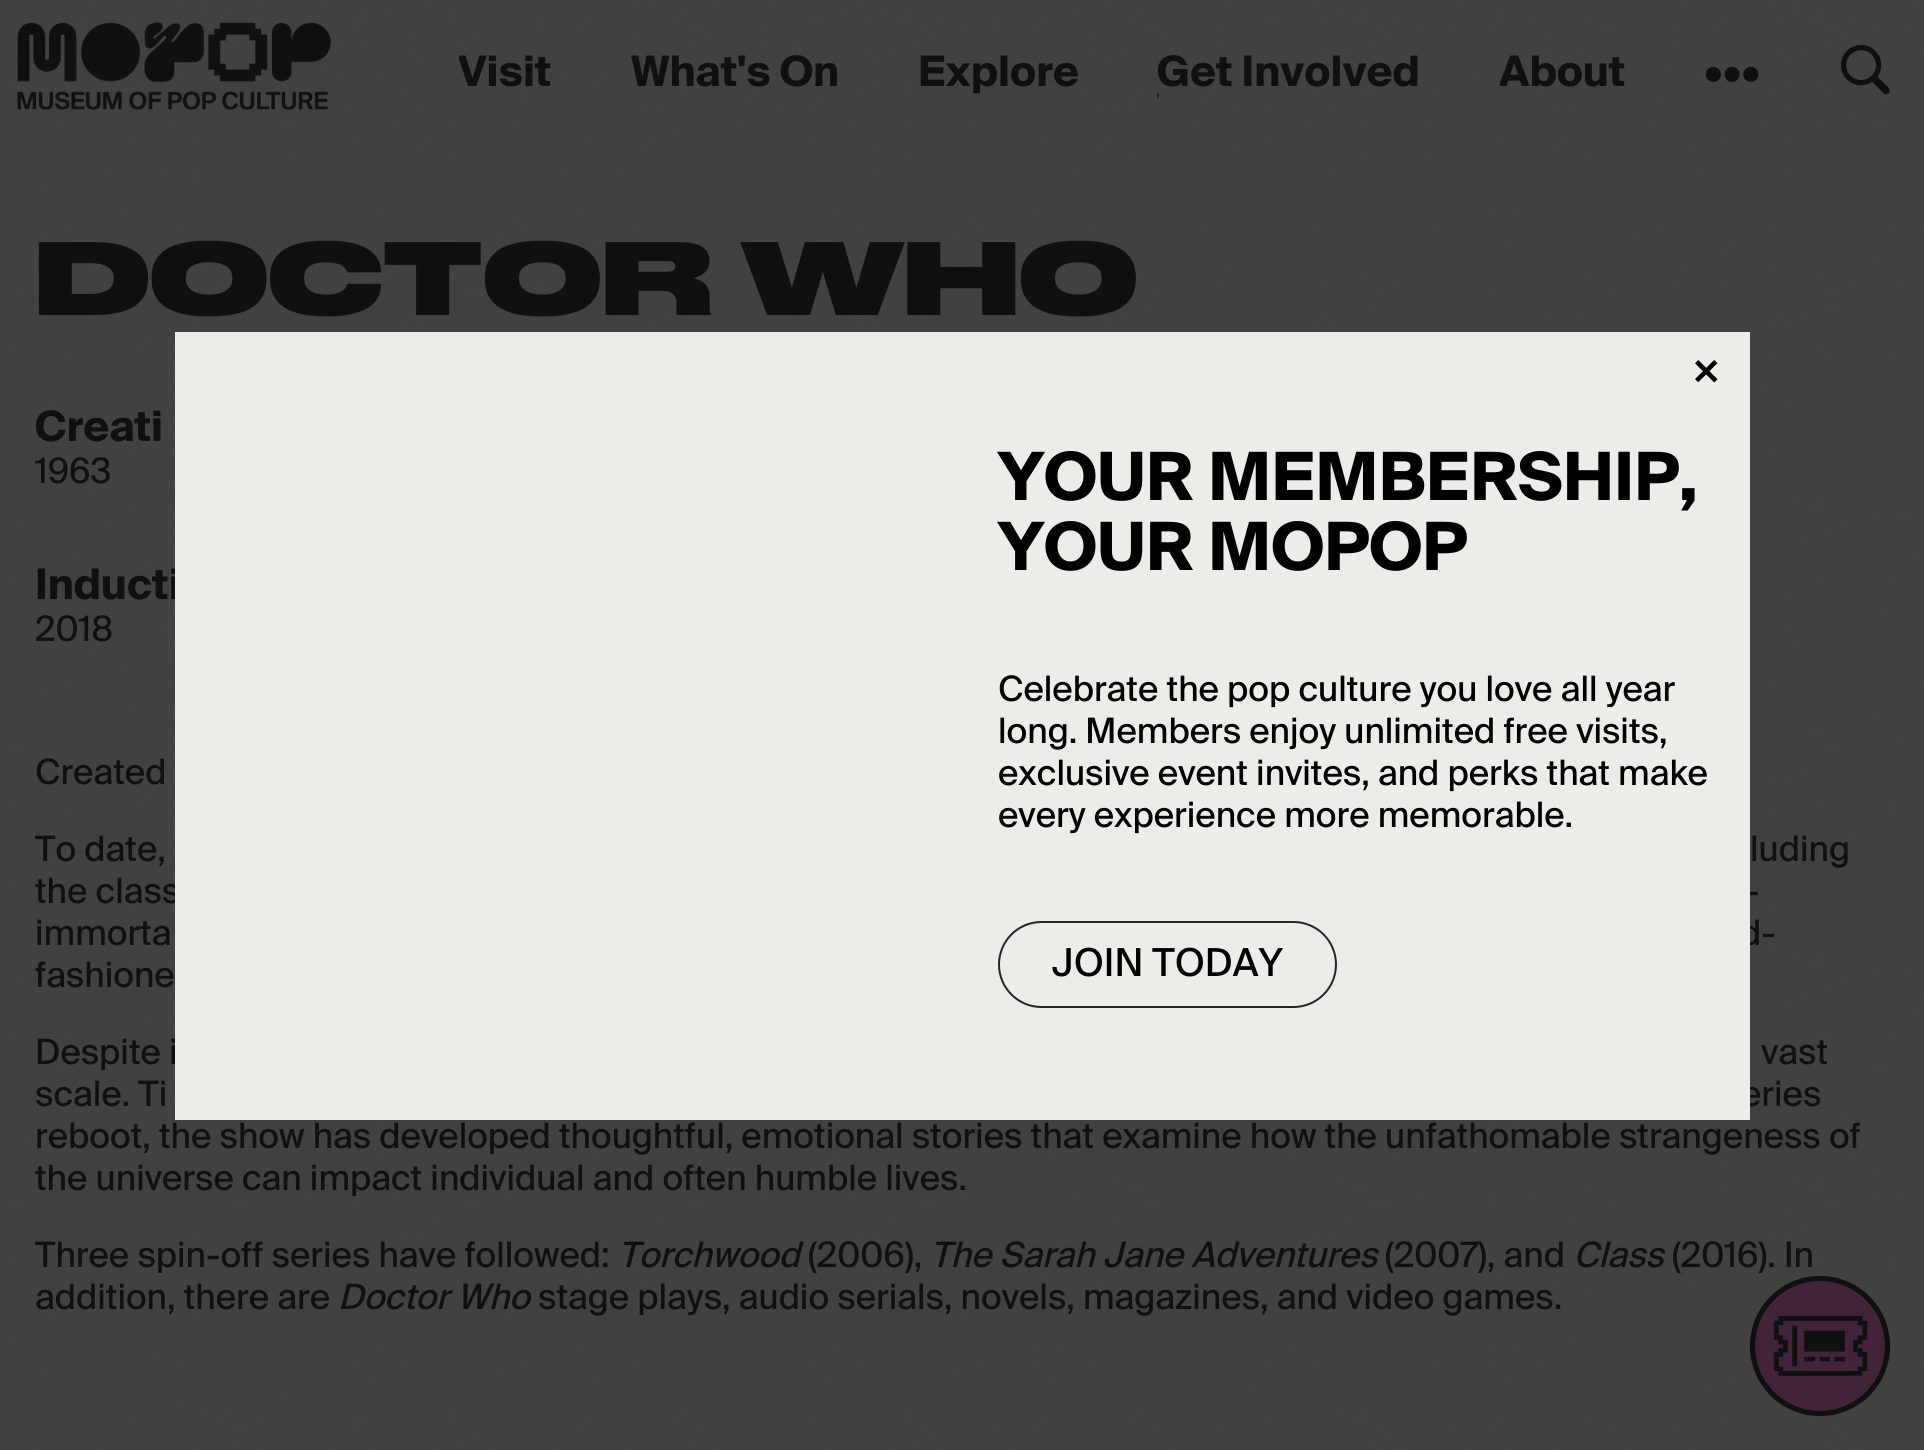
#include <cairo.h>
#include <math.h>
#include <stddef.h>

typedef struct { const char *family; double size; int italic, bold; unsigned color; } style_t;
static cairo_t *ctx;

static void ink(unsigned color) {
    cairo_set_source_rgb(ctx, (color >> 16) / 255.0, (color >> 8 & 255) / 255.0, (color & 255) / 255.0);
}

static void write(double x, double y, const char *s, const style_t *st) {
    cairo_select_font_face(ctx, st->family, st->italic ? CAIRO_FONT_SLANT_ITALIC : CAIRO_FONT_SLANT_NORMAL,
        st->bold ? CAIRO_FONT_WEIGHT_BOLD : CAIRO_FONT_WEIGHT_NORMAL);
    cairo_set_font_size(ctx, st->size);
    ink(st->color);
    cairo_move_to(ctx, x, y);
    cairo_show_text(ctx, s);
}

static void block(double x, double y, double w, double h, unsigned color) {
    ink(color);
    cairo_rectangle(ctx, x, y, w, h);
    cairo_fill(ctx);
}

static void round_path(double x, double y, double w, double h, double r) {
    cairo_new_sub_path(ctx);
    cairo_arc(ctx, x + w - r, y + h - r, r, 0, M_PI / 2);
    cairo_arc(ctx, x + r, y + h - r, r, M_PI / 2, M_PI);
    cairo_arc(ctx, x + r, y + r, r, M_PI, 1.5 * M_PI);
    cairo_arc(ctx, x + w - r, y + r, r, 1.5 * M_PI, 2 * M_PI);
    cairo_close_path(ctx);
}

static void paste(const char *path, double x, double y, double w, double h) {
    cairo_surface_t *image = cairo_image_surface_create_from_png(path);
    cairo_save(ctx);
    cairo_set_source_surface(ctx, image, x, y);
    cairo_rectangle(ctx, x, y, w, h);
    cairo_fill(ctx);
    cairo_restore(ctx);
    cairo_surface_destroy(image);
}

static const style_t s1 = {"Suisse", 42, 0, 1, 0x101010};
static const style_t s2 = {"Suisse", 35, 0, 0, 0x101010};
static const style_t s3 = {"Suisse", 48, 0, 0, 0x000000};
static const style_t s4 = {"Suisse", 66.5, 0, 1, 0x000000};
static const style_t s5 = {"Suisse", 35, 0, 0, 0x000000};
static const style_t s6 = {"Suisse", 38.5, 0, 0, 0x000000};
static const style_t s7 = {"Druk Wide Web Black", 98, 0, 0, 0x101010};
static const style_t s8 = {"Suisse", 35, 1, 0, 0x101010};

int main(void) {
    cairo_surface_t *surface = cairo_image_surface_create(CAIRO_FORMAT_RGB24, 1924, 1450);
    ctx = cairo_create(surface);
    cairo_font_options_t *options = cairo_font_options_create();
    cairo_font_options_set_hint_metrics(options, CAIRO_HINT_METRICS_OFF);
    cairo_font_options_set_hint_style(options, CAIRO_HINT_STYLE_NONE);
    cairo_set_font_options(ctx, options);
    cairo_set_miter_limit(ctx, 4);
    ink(0xffffff);
    cairo_paint(ctx);
    paste("pic1.png", 0, 130, 1924, 1320);
    paste("pic2.png", 0, 0, 1924, 131);
    paste("pic3.png", 17, 22, 314, 88);
    cairo_save(ctx);
    cairo_rectangle(ctx, 459, 51, 92, 47);
    cairo_clip(ctx);
    write(458, 86, "Visit", &s1);
    cairo_restore(ctx);
    write(631, 86, "What's On", &s1);
    write(918, 86, "Explore", &s1);
    write(1157, 86, "Get Involved", &s1);
    block(1157, 93, 2, 5, 0x102a3f);
    cairo_save(ctx);
    cairo_rectangle(ctx, 1500, 51, 126, 47);
    cairo_clip(ctx);
    write(1499, 86, "About", &s1);
    cairo_restore(ctx);
    write(1704, 86, "•••", &s1);
    paste("pic4.png", 1840, 44, 50, 51);
    write(35, 599, "Inducti", &s1);
    write(35, 903, "the class", &s2);
    write(1745, 903, "-", &s2);
    write(1740, 945, "d-", &s2);
    write(35, 1064, "Despite i", &s2);
    write(1741, 1106, "eries", &s2);
    block(175, 332, 1575, 788, 0xedece8);
    write(1690, 384, "×", &s3);
    write(998, 500, "YOUR MEMBERSHIP,", &s4);
    write(998, 570, "YOUR MOPOP", &s4);
    write(998, 701, "Celebrate the pop culture you love all year", &s5);
    write(998, 743, "long. Members enjoy unlimited free visits,", &s5);
    write(998, 785, "exclusive event invites, and perks that make", &s5);
    write(998, 827, "every experience more memorable.", &s5);
    round_path(999, 922, 337, 85, 42.5);
    ink(0x262626);
    cairo_stroke(ctx);
    write(1052, 976, "JOIN TODAY", &s6);
    paste("pic5.png", 1750, 1276, 140, 140);
    write(35, 315, "DOCTOR WHO", &s7);
    write(35, 441, "Creati", &s1);
    write(35, 483, "1963", &s2);
    write(35, 641, "2018", &s2);
    write(35, 784, "Created", &s2);
    write(35, 861, "To date,", &s2);
    write(1750, 861, "luding", &s2);
    write(35, 945, "immorta", &s2);
    write(35, 987, "fashione", &s2);
    write(1761, 1064, "vast", &s2);
    write(35, 1106, "scale. Ti", &s2);
    write(35, 1148, "reboot, the show has developed thoughtful, emotional stories that examine how the unfathomable strangeness of", &s2);
    write(35, 1190, "the universe can impact individual and often humble lives.", &s2);
    write(35, 1267, "Three spin-off series have followed:", &s2);
    write(618, 1267, "Torchwood", &s8);
    write(808, 1267, "(2006),", &s2);
    write(930, 1267, "The Sarah Jane Adventures", &s8);
    write(1385, 1267, "(2007), and", &s2);
    write(1573, 1267, "Class", &s8);
    write(1672, 1267, "(2016). In", &s2);
    write(35, 1309, "addition, there are", &s2);
    write(338, 1309, "Doctor Who", &s8);
    write(538, 1309, "stage plays, audio serials, novels, magazines, and video games.", &s2);
    cairo_surface_write_to_png(surface, "screenshot.png");
    cairo_font_options_destroy(options);
    cairo_destroy(ctx);
    cairo_surface_destroy(surface);
    return 0;
}
